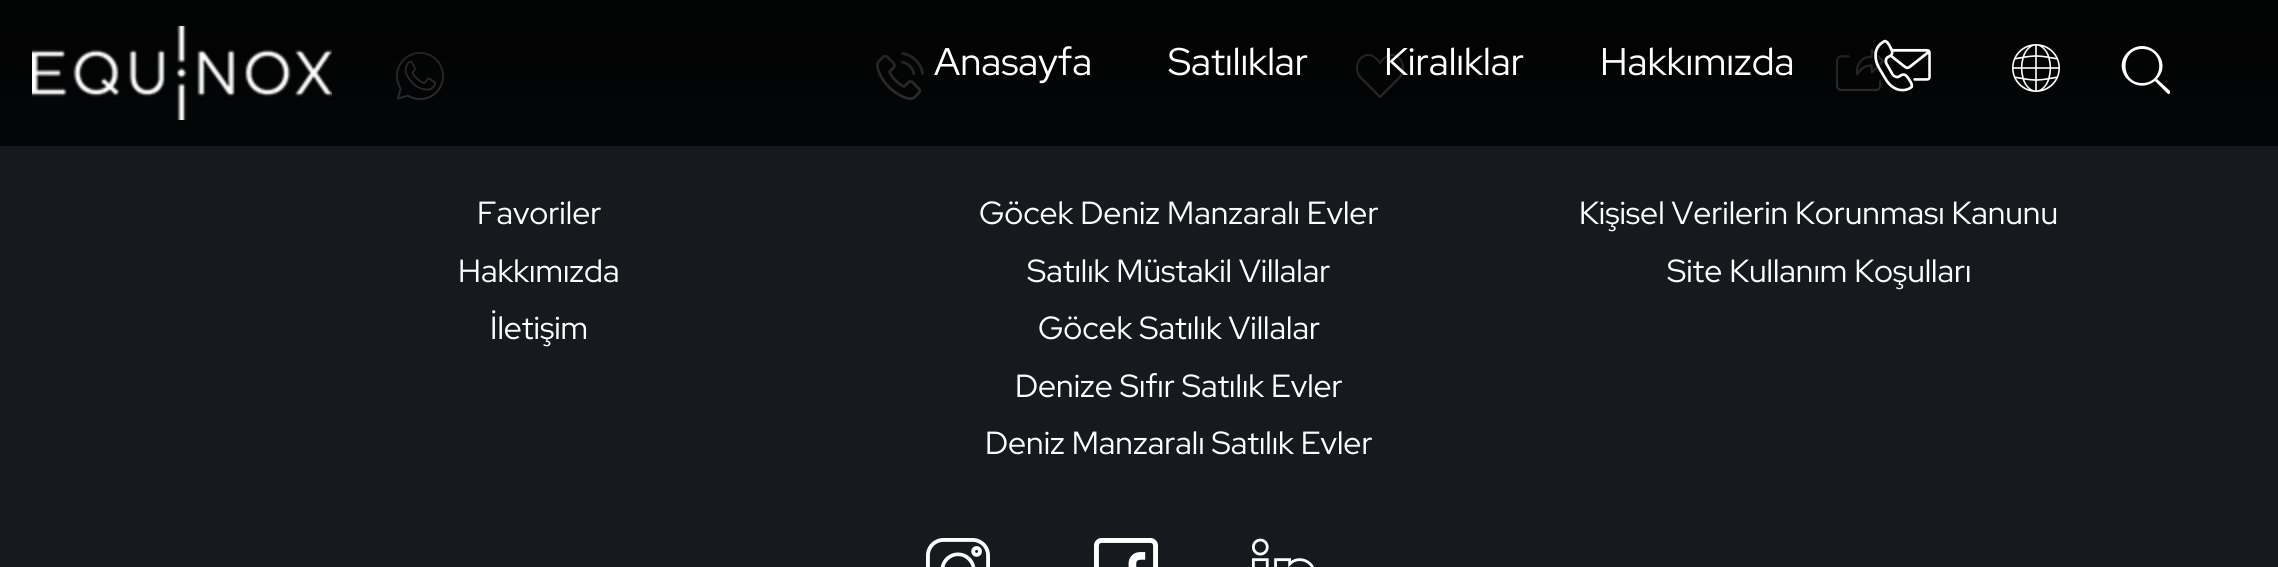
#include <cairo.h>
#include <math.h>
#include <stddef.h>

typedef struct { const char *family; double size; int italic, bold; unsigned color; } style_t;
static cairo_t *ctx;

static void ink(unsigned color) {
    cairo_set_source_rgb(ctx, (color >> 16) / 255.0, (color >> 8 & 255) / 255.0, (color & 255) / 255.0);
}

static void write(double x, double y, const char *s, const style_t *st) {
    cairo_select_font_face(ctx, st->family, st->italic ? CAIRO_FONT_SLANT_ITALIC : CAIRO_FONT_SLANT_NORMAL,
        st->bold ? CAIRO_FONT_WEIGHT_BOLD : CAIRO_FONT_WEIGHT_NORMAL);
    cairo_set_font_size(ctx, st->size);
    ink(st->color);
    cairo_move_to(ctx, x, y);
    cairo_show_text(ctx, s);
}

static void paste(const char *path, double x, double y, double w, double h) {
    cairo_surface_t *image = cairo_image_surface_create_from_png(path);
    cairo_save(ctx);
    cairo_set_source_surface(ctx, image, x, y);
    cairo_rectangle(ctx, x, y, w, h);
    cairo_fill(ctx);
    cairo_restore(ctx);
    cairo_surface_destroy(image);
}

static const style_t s1 = {"Red Hat Display", 38.5, 0, 0, 0xffffff};
static const style_t s2 = {"Red Hat Display", 32, 0, 0, 0xffffff};

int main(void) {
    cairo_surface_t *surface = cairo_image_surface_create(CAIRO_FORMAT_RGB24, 2278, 567);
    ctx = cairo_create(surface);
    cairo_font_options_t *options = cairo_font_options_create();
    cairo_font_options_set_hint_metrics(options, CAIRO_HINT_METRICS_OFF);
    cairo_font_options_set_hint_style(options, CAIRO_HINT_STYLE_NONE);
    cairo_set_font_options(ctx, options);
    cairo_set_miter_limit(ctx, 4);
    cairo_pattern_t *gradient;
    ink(0x161a1e);
    cairo_paint(ctx);
    paste("pic4.png", 396, 52, 48, 48);
    paste("pic5.png", 876, 52, 48, 48);
    paste("pic6.png", 1356, 53, 48, 45);
    paste("pic7.png", 1836, 49, 48, 43);
    cairo_set_source_rgba(ctx, 0, 0, 0, 0.8);
    cairo_rectangle(ctx, 0, 0, 2278, 146);
    cairo_fill(ctx);
    gradient = cairo_pattern_create_linear(1139, 0, 1139, 146);
    cairo_pattern_add_color_stop_rgba(gradient, 0, 0, 0, 0, 0.5);
    cairo_pattern_add_color_stop_rgba(gradient, 1, 0, 0, 0, 0);
    cairo_set_source(ctx, gradient);
    cairo_pattern_destroy(gradient);
    cairo_rectangle(ctx, 0, 0, 2278, 100);
    cairo_fill(ctx);
    paste("pic1.png", 32, 26, 300, 94);
    write(934, 75, "Anasayfa", &s1);
    write(1168, 75, "Satılıklar", &s1);
    write(1384, 75, "Kiralıklar", &s1);
    write(1600, 75, "Hakkımızda", &s1);
    paste("pic2.png", 1874, 39, 57, 53);
    paste("pic3.png", 2012, 44, 48, 48);
    cairo_new_path(ctx);
    cairo_move_to(ctx, 2170, 91);
    cairo_line_to(ctx, 2157, 79);
    cairo_curve_to(ctx, 2174, 61, 2148, 35, 2129, 51);
    cairo_curve_to(ctx, 2109, 68, 2134, 97, 2155, 81);
    cairo_line_to(ctx, 2163, 89);
    cairo_curve_to(ctx, 2166, 92, 2169, 96, 2170, 93);
    cairo_close_path(ctx);
    cairo_move_to(ctx, 2142, 83);
    cairo_curve_to(ctx, 2120, 83, 2120, 49, 2142, 49);
    cairo_curve_to(ctx, 2165, 49, 2165, 83, 2142, 83);
    cairo_close_path(ctx);
    cairo_fill(ctx);
    write(477, 224, "Favoriler", &s2);
    write(458, 282, "Hakkımızda", &s2);
    write(490, 339, "İletişim", &s2);
    write(979, 224, "Göcek Deniz Manzaralı Evler", &s2);
    write(1027, 282, "Satılık Müstakil Villalar", &s2);
    write(1038, 339, "Göcek Satılık Villalar", &s2);
    write(1015, 397, "Denize Sıfır Satılık Evler", &s2);
    write(985, 454, "Deniz Manzaralı Satılık Evler", &s2);
    write(1579, 224, "Kişisel Verilerin Korunması Kanunu", &s2);
    write(1667, 282, "Site Kullanım Koşulları", &s2);
    paste("pic8.png", 926, 538, 64, 29);
    paste("pic9.png", 1094, 538, 64, 29);
    paste("pic10.png", 1252, 538, 62, 29);
    cairo_surface_write_to_png(surface, "screenshot.png");
    cairo_font_options_destroy(options);
    cairo_destroy(ctx);
    cairo_surface_destroy(surface);
    return 0;
}
